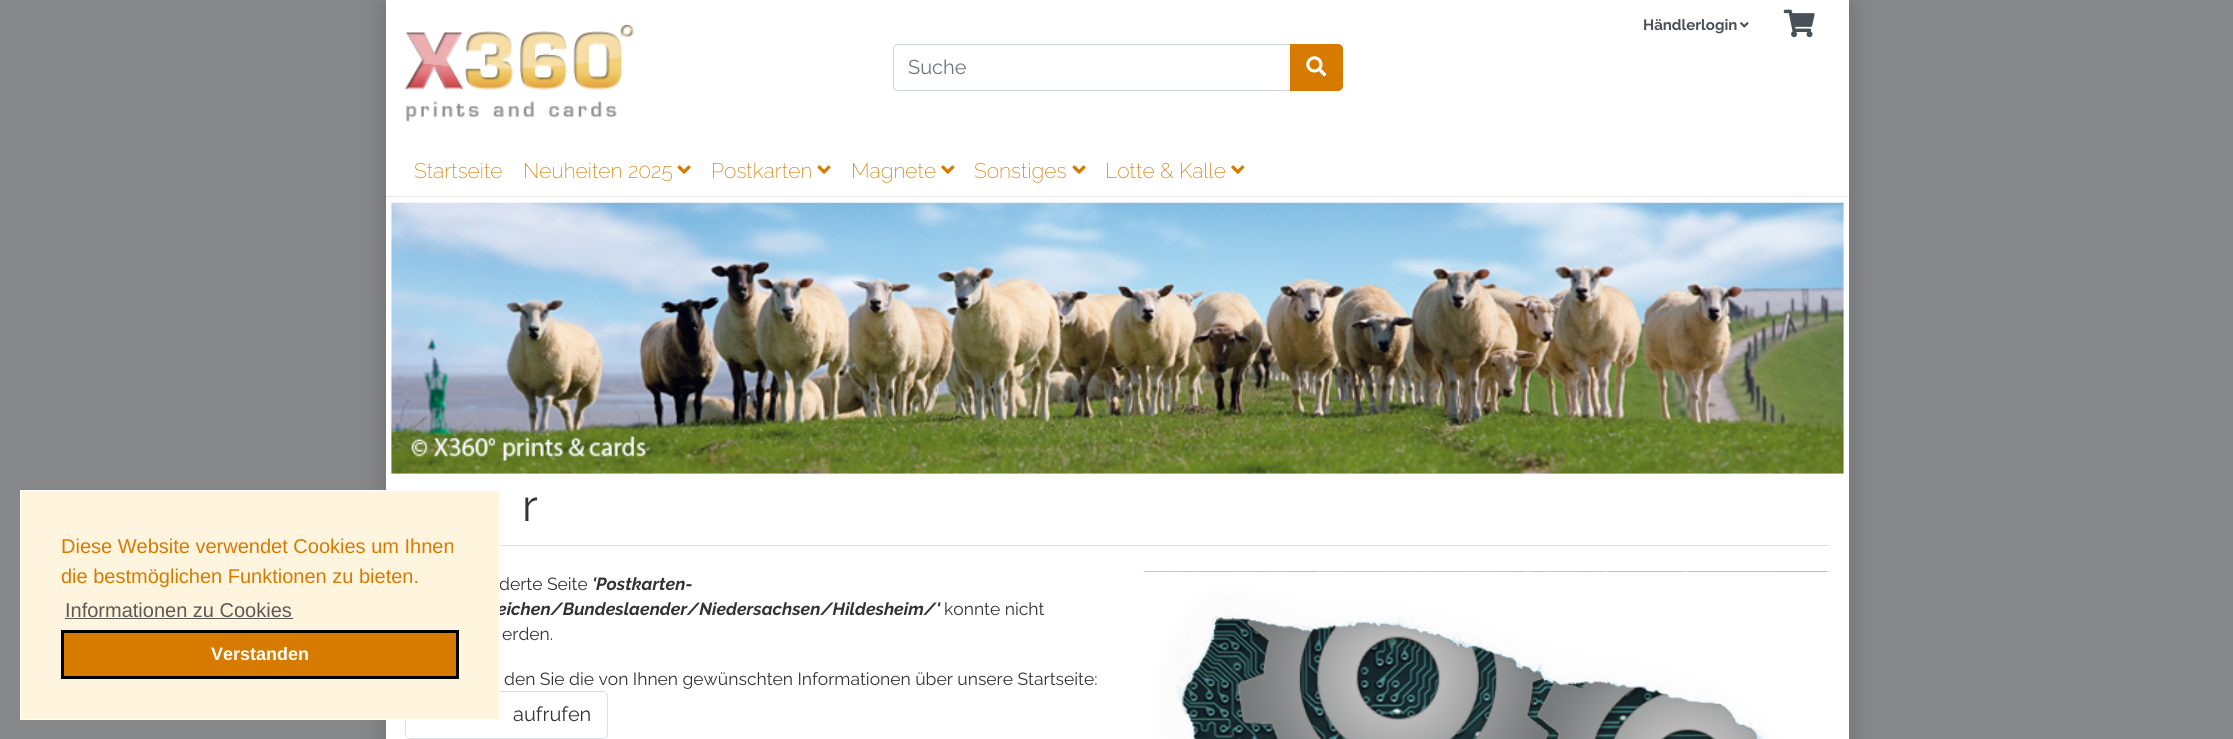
#include <cairo.h>
#include <math.h>
#include <stddef.h>

typedef struct { const char *family; double size; int italic, bold; unsigned color; } style_t;
static cairo_t *ctx;

static void ink(unsigned color) {
    cairo_set_source_rgb(ctx, (color >> 16) / 255.0, (color >> 8 & 255) / 255.0, (color & 255) / 255.0);
}

static void write(double x, double y, const char *s, const style_t *st) {
    cairo_select_font_face(ctx, st->family, st->italic ? CAIRO_FONT_SLANT_ITALIC : CAIRO_FONT_SLANT_NORMAL,
        st->bold ? CAIRO_FONT_WEIGHT_BOLD : CAIRO_FONT_WEIGHT_NORMAL);
    cairo_set_font_size(ctx, st->size);
    ink(st->color);
    cairo_move_to(ctx, x, y);
    cairo_show_text(ctx, s);
}

static void block(double x, double y, double w, double h, unsigned color) {
    ink(color);
    cairo_rectangle(ctx, x, y, w, h);
    cairo_fill(ctx);
}

static void round_path(double x, double y, double w, double h, double r) {
    cairo_new_sub_path(ctx);
    cairo_arc(ctx, x + w - r, y + h - r, r, 0, M_PI / 2);
    cairo_arc(ctx, x + r, y + h - r, r, M_PI / 2, M_PI);
    cairo_arc(ctx, x + r, y + r, r, M_PI, 1.5 * M_PI);
    cairo_arc(ctx, x + w - r, y + r, r, 1.5 * M_PI, 2 * M_PI);
    cairo_close_path(ctx);
}

static void blur_box(double x, double y, double w, double h, double r, double blur, double alpha) {
    cairo_push_group_with_content(ctx, CAIRO_CONTENT_ALPHA);
    cairo_set_operator(ctx, CAIRO_OPERATOR_SOURCE);
    for (int i = 15; i >= -15 && fmin(w, h) + blur * i / 3 > 0; i -= 2) {
        double e = blur * i / 6;
        cairo_set_source_rgba(ctx, 0, 0, 0, alpha * erfc((i - 1) / 8.5) / 2);
        round_path(x - e, y - e, w + 2 * e, h + 2 * e, fmax(0, fmin(r + e + blur * .6, fmin(w, h) / 2 + e)));
        cairo_fill(ctx);
    }
    cairo_pattern_t *soft = cairo_pop_group(ctx);
    cairo_mask(ctx, soft);
    cairo_pattern_destroy(soft);
}

static void paste(const char *path, double x, double y, double w, double h) {
    cairo_surface_t *image = cairo_image_surface_create_from_png(path);
    cairo_save(ctx);
    cairo_set_source_surface(ctx, image, x, y);
    cairo_rectangle(ctx, x, y, w, h);
    cairo_fill(ctx);
    cairo_restore(ctx);
    cairo_surface_destroy(image);
}

static const style_t s1 = {"Raleway Thin", 17.5, 0, 0, 0x333333};
static const style_t s2 = {"Raleway Thin", 17.5, 1, 0, 0x333333};
static const style_t s3 = {"Liberation Sans", 20, 0, 0, 0xd77a00};
static const style_t s4 = {"Liberation Sans", 20, 0, 0, 0x5c5a55};
static const style_t s5 = {"Liberation Sans", 18, 0, 1, 0xffffff};
static const style_t s6 = {"Raleway Thin", 20, 0, 0, 0x6c757d};
static const style_t s7 = {"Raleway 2 Thin", 15, 0, 0, 0x495057};
static const style_t s8 = {"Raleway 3 Thin", 21, 0, 0, 0xd77a00};
static const style_t s9 = {"Raleway Thin", 45, 0, 0, 0x333333};
static const style_t s10 = {"Raleway Thin", 20, 0, 0, 0x333333};

int main(void) {
    cairo_surface_t *surface = cairo_image_surface_create(CAIRO_FORMAT_RGB24, 2233, 739);
    ctx = cairo_create(surface);
    cairo_font_options_t *options = cairo_font_options_create();
    cairo_font_options_set_hint_metrics(options, CAIRO_HINT_METRICS_OFF);
    cairo_font_options_set_hint_style(options, CAIRO_HINT_STYLE_NONE);
    cairo_set_font_options(ctx, options);
    cairo_set_miter_limit(ctx, 4);
    ink(0x868789);
    cairo_paint(ctx);
    ink(0x000000);
    blur_box(386, 6, 1463, 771, 0, 12.5, 0.2);
    block(386, 0, 1463, 739, 0xffffff);
    write(499, 590, "derte Seite", &s1);
    write(497, 615, "eichen/Bundeslaender/Niedersachsen/Hildesheim/'", &s2);
    round_path(405.5, 691.5, 202, 47, 4.5);
    ink(0xdee2e6);
    cairo_set_line_width(ctx, 1);
    cairo_stroke(ctx);
    ink(0xfff4de);
    cairo_rectangle(ctx, 20.5, 490.5, 479, 229);
    cairo_fill_preserve(ctx);
    ink(0xffffff);
    cairo_stroke(ctx);
    write(61, 553, "Diese Website verwendet Cookies um Ihnen", &s3);
    write(61, 583, "die bestmöglichen Funktionen zu bieten.", &s3);
    write(65, 617, "Informationen zu Cookies", &s4);
    block(65, 618, 228, 1, 0x5c5a55);
    ink(0xd77a00);
    cairo_rectangle(ctx, 62.5, 631.5, 395, 46);
    cairo_fill_preserve(ctx);
    ink(0x000000);
    cairo_set_line_width(ctx, 3);
    cairo_stroke(ctx);
    write(211, 660, "Verstanden", &s5);
    paste("pic1.png", 405, 25, 229, 97);
    cairo_new_path(ctx);
    cairo_move_to(ctx, 898, 44.5);
    cairo_line_to(ctx, 1290.5, 44.5);
    cairo_line_to(ctx, 1290.5, 90.5);
    cairo_line_to(ctx, 898, 90.5);
    cairo_curve_to(ctx, 895.5, 90.5, 893.5, 88.5, 893.5, 86);
    cairo_line_to(ctx, 893.5, 49);
    cairo_curve_to(ctx, 893.5, 46.5, 895.5, 44.5, 898, 44.5);
    cairo_close_path(ctx);
    ink(0xced4da);
    cairo_set_line_width(ctx, 1);
    cairo_stroke(ctx);
    write(908, 74, "Suche", &s6);
    ink(0xd77a00);
    cairo_new_path(ctx);
    cairo_move_to(ctx, 1290.5, 44.5);
    cairo_line_to(ctx, 1338, 44.5);
    cairo_curve_to(ctx, 1340.5, 44.5, 1342.5, 46.5, 1342.5, 49);
    cairo_line_to(ctx, 1342.5, 86);
    cairo_curve_to(ctx, 1342.5, 88.5, 1340.5, 90.5, 1338, 90.5);
    cairo_line_to(ctx, 1290.5, 90.5);
    cairo_close_path(ctx);
    cairo_fill_preserve(ctx);
    cairo_stroke(ctx);
    paste("pic2.png", 1306, 56, 21, 21);
    write(1643, 30, "Händlerlogin", &s7);
    paste("pic3.png", 1740, 22, 9, 6);
    paste("pic4.png", 1783, 9, 32, 29);
    block(386, 196, 1463, 1, 0xe7e7e7);
    write(414, 178, "Startseite", &s8);
    write(523, 178, "Neuheiten 2025", &s8);
    paste("pic5.png", 677, 165, 14, 9);
    write(711, 178, "Postkarten", &s8);
    paste("pic5.png", 817, 165, 14, 9);
    write(851, 178, "Magnete", &s8);
    paste("pic6.png", 941, 165, 14, 9);
    write(974, 178, "Sonstiges", &s8);
    paste("pic5.png", 1072, 165, 14, 9);
    write(1105, 178, "Lotte & Kalle", &s8);
    paste("pic6.png", 1231, 165, 14, 9);
    paste("pic7.png", 391, 202, 1453, 272);
    block(500, 545, 1330, 1, 0xdee2e6);
    write(522, 521, "r", &s9);
    write(592, 590, "'Postkarten-", &s2);
    write(944, 615, "konnte nicht", &s1);
    write(502, 640, "erden.", &s1);
    write(504, 685, "den Sie die von Ihnen gewünschten Informationen über unsere Startseite:", &s1);
    write(513, 721, "aufrufen", &s10);
    paste("pic8.png", 1143, 571, 685, 168);
    paste("pic10.png", 1235, 571, 323, 168);
    paste("pic11.png", 1535, 679, 225, 60);
    paste("pic9.png", 1143, 571, 687, 168);
    cairo_surface_write_to_png(surface, "screenshot.png");
    cairo_font_options_destroy(options);
    cairo_destroy(ctx);
    cairo_surface_destroy(surface);
    return 0;
}
